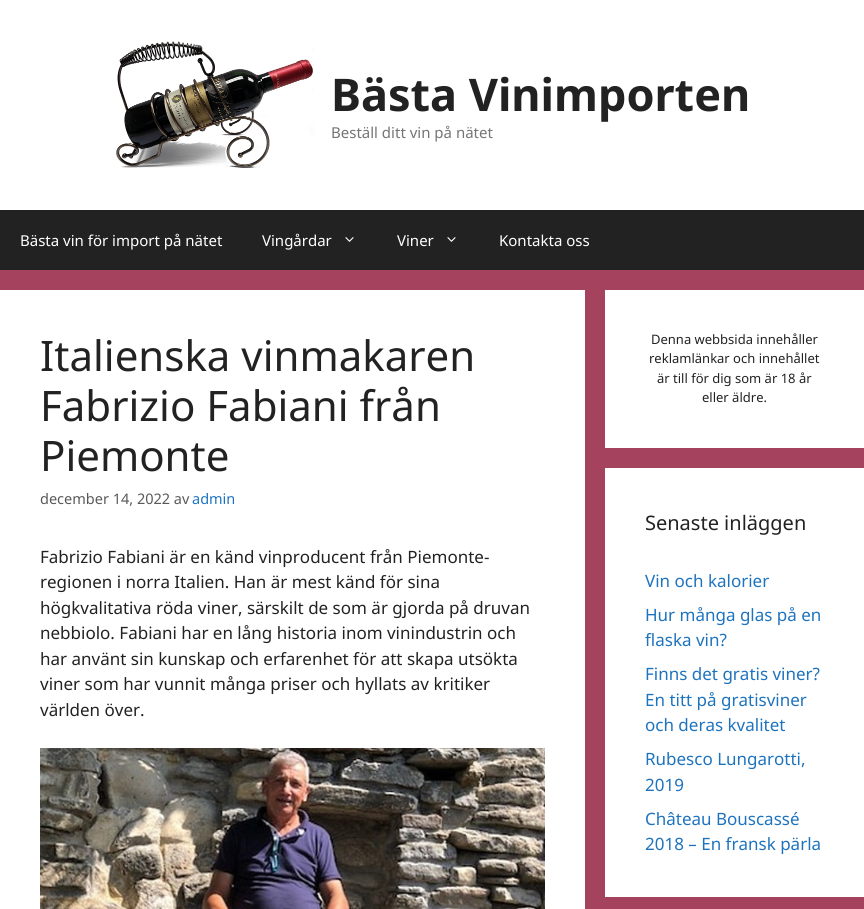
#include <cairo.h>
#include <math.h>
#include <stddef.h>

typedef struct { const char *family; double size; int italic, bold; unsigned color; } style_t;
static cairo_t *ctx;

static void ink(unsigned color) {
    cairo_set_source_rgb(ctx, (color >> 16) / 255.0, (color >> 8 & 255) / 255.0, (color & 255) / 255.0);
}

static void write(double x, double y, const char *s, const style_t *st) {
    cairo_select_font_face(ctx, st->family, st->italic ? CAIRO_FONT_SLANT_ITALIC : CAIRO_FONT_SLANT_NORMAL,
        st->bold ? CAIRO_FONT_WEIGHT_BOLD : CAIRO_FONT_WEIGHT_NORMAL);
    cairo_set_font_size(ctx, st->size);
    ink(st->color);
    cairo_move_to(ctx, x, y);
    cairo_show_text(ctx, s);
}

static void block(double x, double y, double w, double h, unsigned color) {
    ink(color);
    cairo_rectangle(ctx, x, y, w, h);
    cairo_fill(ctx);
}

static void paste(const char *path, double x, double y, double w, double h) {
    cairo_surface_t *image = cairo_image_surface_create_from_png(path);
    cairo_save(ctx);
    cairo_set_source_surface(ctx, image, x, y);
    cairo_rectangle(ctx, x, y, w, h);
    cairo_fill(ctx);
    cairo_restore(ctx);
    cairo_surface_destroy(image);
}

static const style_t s1 = {"Noto Sans", 45, 0, 1, 0x222222};
static const style_t s2 = {"Noto Sans", 15, 0, 0, 0x757575};
static const style_t s3 = {"Noto Sans", 15, 0, 0, 0xffffff};
static const style_t s4 = {"Noto Sans", 42, 0, 0, 0x222222};
static const style_t s5 = {"Noto Sans", 14.5, 0, 0, 0x595959};
static const style_t s6 = {"Noto Sans", 14.5, 0, 0, 0x1e73be};
static const style_t s7 = {"Noto Sans", 17, 0, 0, 0x222222};
static const style_t s8 = {"Noto Sans", 13, 0, 0, 0x222222};
static const style_t s9 = {"Noto Sans", 20, 0, 0, 0x222222};
static const style_t s10 = {"Noto Sans", 17, 0, 0, 0x1e73be};

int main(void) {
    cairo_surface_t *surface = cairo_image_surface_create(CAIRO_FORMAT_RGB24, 864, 909);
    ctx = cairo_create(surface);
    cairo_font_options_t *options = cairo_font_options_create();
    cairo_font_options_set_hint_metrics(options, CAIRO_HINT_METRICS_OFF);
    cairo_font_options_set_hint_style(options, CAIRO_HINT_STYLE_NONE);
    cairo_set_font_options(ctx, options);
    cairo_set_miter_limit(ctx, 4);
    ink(0xa5435f);
    cairo_paint(ctx);
    block(0, 0, 864, 210, 0xffffff);
    paste("pic1.png", 116, 41, 198, 127);
    write(331, 111, "Bästa Vinimporten", &s1);
    write(331, 138, "Beställ ditt vin på nätet", &s2);
    block(0, 210, 864, 60, 0x222222);
    write(20, 246, "Bästa vin för import på nätet", &s3);
    write(262, 246, "Vingårdar", &s3);
    paste("pic2.png", 345, 237, 9, 5);
    write(397, 246, "Viner", &s3);
    paste("pic2.png", 447, 237, 9, 5);
    write(499, 246, "Kontakta oss", &s3);
    block(0, 290, 585, 619, 0xffffff);
    write(40, 371, "Italienska vinmakaren", &s4);
    write(40, 421, "Fabrizio Fabiani från", &s4);
    write(40, 471, "Piemonte", &s4);
    write(40, 504, "december 14, 2022 av", &s5);
    write(192, 504, "admin", &s6);
    write(40, 563, "Fabrizio Fabiani är en känd vinproducent från Piemonte-", &s7);
    write(40, 588, "regionen i norra Italien. Han är mest känd för sina", &s7);
    write(40, 614, "högkvalitativa röda viner, särskilt de som är gjorda på druvan", &s7);
    write(40, 639, "nebbiolo. Fabiani har en lång historia inom vinindustrin och", &s7);
    write(40, 665, "har använt sin kunskap och erfarenhet för att skapa utsökta", &s7);
    write(40, 690, "viner som har vunnit många priser och hyllats av kritiker", &s7);
    write(40, 716, "världen över.", &s7);
    paste("pic3.png", 40, 748, 505, 161);
    block(605, 290, 259, 158, 0xffffff);
    write(651, 344, "Denna webbsida innehåller", &s8);
    write(649, 363, "reklamlänkar och innehållet", &s8);
    write(657, 383, "är till för dig som är 18 år", &s8);
    write(702, 402, "eller äldre.", &s8);
    block(605, 468, 259, 429, 0xffffff);
    write(645, 530, "Senaste inläggen", &s9);
    write(645, 587, "Vin och kalorier", &s10);
    write(645, 621, "Hur många glas på en", &s10);
    write(645, 646, "flaska vin?", &s10);
    write(645, 680, "Finns det gratis viner?", &s10);
    write(645, 706, "En titt på gratisviner", &s10);
    write(645, 731, "och deras kvalitet", &s10);
    write(645, 765, "Rubesco Lungarotti,", &s10);
    write(645, 791, "2019", &s10);
    write(645, 825, "Château Bouscassé", &s10);
    write(645, 850, "2018 – En fransk pärla", &s10);
    cairo_surface_write_to_png(surface, "screenshot.png");
    cairo_font_options_destroy(options);
    cairo_destroy(ctx);
    cairo_surface_destroy(surface);
    return 0;
}
